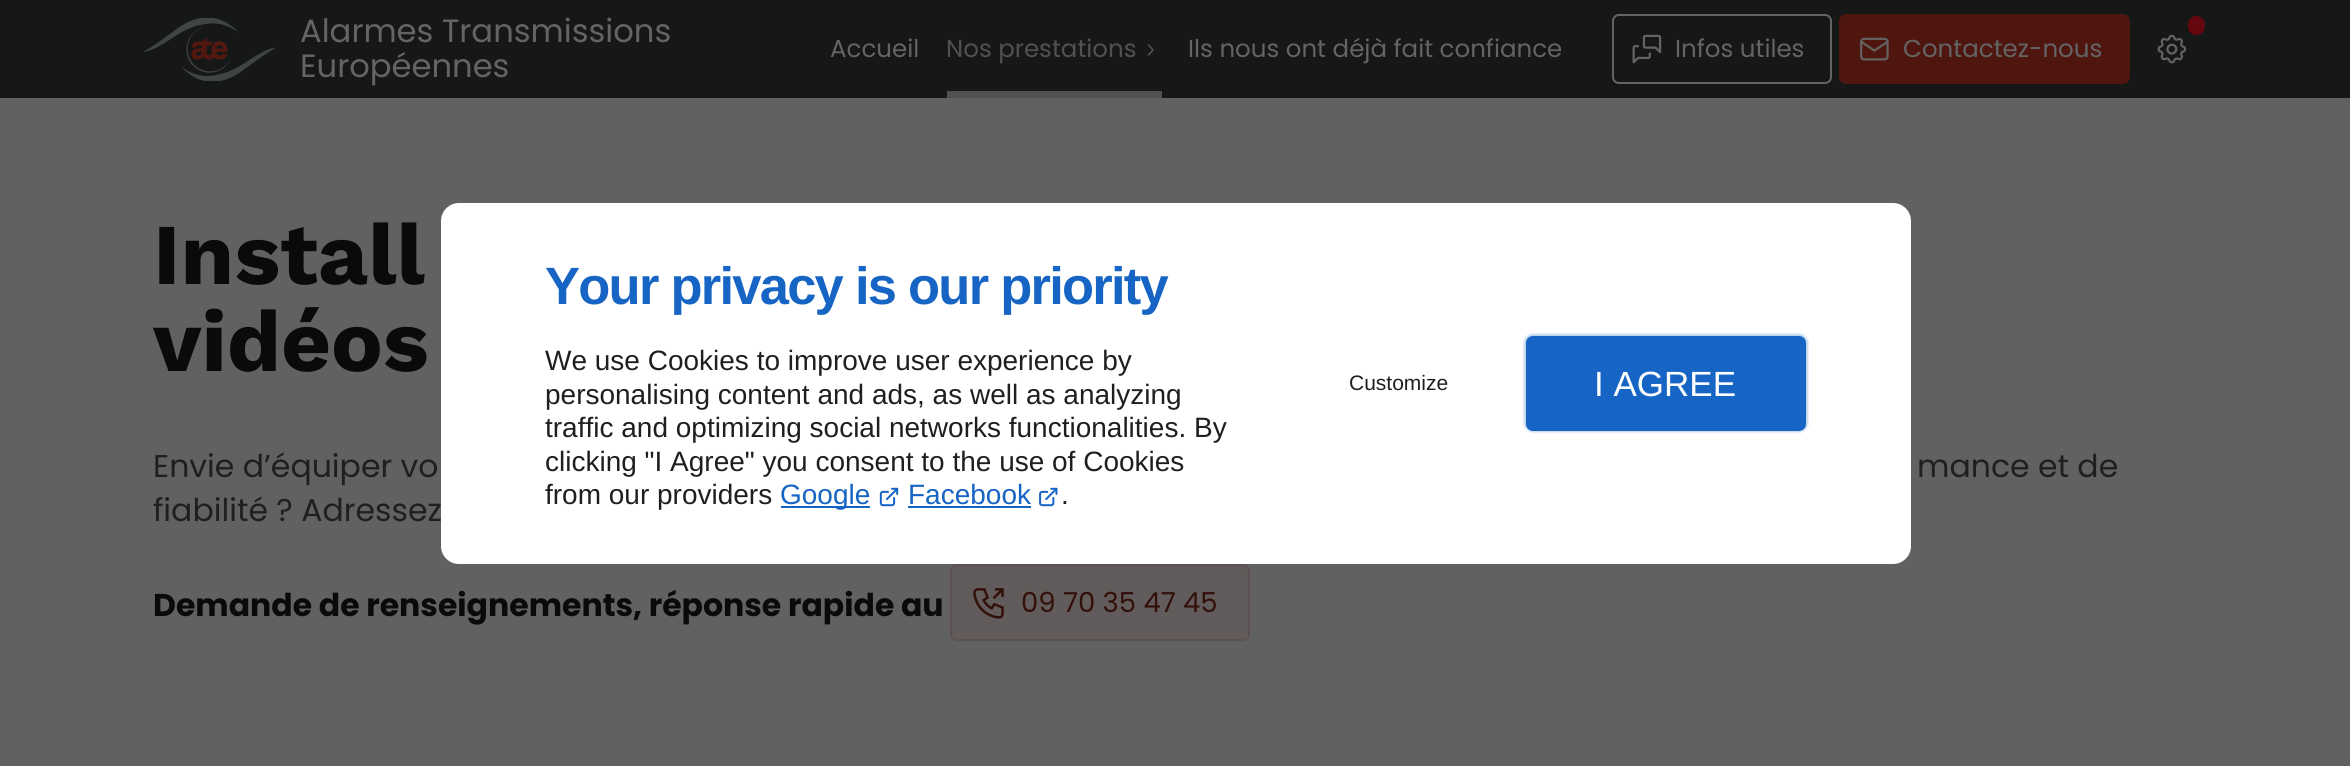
#include <cairo.h>
#include <math.h>
#include <stddef.h>

typedef struct { const char *family; double size; int italic, bold; unsigned color; } style_t;
static cairo_t *ctx;

static void ink(unsigned color) {
    cairo_set_source_rgb(ctx, (color >> 16) / 255.0, (color >> 8 & 255) / 255.0, (color & 255) / 255.0);
}

static void write(double x, double y, const char *s, const style_t *st) {
    cairo_select_font_face(ctx, st->family, st->italic ? CAIRO_FONT_SLANT_ITALIC : CAIRO_FONT_SLANT_NORMAL,
        st->bold ? CAIRO_FONT_WEIGHT_BOLD : CAIRO_FONT_WEIGHT_NORMAL);
    cairo_set_font_size(ctx, st->size);
    ink(st->color);
    cairo_move_to(ctx, x, y);
    cairo_show_text(ctx, s);
}

static void write_spaced(double x, double y, const char *s, double letter, double word) {
    cairo_move_to(ctx, x, y);
    while (*s) {
        char ch[5] = {0};
        int n = 0;
        do ch[n++] = *s++; while ((*s & 0xC0) == 0x80);
        cairo_show_text(ctx, ch);
        cairo_rel_move_to(ctx, letter + word * (*ch == ' '), 0);
    }
}

static void block(double x, double y, double w, double h, unsigned color) {
    ink(color);
    cairo_rectangle(ctx, x, y, w, h);
    cairo_fill(ctx);
}

static void round_path(double x, double y, double w, double h, double r) {
    cairo_new_sub_path(ctx);
    cairo_arc(ctx, x + w - r, y + h - r, r, 0, M_PI / 2);
    cairo_arc(ctx, x + r, y + h - r, r, M_PI / 2, M_PI);
    cairo_arc(ctx, x + r, y + r, r, M_PI, 1.5 * M_PI);
    cairo_arc(ctx, x + w - r, y + r, r, 1.5 * M_PI, 2 * M_PI);
    cairo_close_path(ctx);
}

static void blur_box(double x, double y, double w, double h, double r, double blur, double alpha) {
    cairo_push_group_with_content(ctx, CAIRO_CONTENT_ALPHA);
    cairo_set_operator(ctx, CAIRO_OPERATOR_SOURCE);
    for (int i = 15; i >= -15 && fmin(w, h) + blur * i / 3 > 0; i -= 2) {
        double e = blur * i / 6;
        cairo_set_source_rgba(ctx, 0, 0, 0, alpha * erfc((i - 1) / 8.5) / 2);
        round_path(x - e, y - e, w + 2 * e, h + 2 * e, fmax(0, fmin(r + e + blur * .6, fmin(w, h) / 2 + e)));
        cairo_fill(ctx);
    }
    cairo_pattern_t *soft = cairo_pop_group(ctx);
    cairo_mask(ctx, soft);
    cairo_pattern_destroy(soft);
}

static void paste(const char *path, double x, double y, double w, double h) {
    cairo_surface_t *image = cairo_image_surface_create_from_png(path);
    cairo_save(ctx);
    cairo_set_source_surface(ctx, image, x, y);
    cairo_rectangle(ctx, x, y, w, h);
    cairo_fill(ctx);
    cairo_restore(ctx);
    cairo_surface_destroy(image);
}

static const style_t s1 = {"Poppins", 32.2, 0, 0, 0x646464};
static const style_t s2 = {"Poppins", 24.5, 0, 0, 0x646464};
static const style_t s3 = {"Poppins", 24.5, 0, 0, 0x505151};
static const style_t s4 = {"Work Sans", 86.5, 0, 1, 0x0a0a0a};
static const style_t s5 = {"Poppins", 31.5, 0, 0, 0x1f1f1f};
static const style_t s6 = {"Poppins", 31.5, 0, 1, 0x0a0a0a};
static const style_t s7 = {"Poppins", 27.5, 0, 0, 0x330f0a};
static const style_t s8 = {"Liberation Sans", 28, 0, 0, 0x1f1f1f};
static const style_t s9 = {"Liberation Sans", 28, 0, 0, 0x1665c4};
static const style_t s10 = {"Liberation Sans", 21, 0, 0, 0x1f1f1f};
static const style_t s11 = {"Liberation Sans", 35, 0, 0, 0xffffff};

int main(void) {
    cairo_surface_t *surface = cairo_image_surface_create(CAIRO_FORMAT_RGB24, 2350, 766);
    ctx = cairo_create(surface);
    cairo_font_options_t *options = cairo_font_options_create();
    cairo_font_options_set_hint_metrics(options, CAIRO_HINT_METRICS_OFF);
    cairo_font_options_set_hint_style(options, CAIRO_HINT_STYLE_NONE);
    cairo_set_font_options(ctx, options);
    cairo_set_miter_limit(ctx, 4);
    ink(0x161717);
    cairo_paint(ctx);
    paste("pic1.png", 144, 18, 131, 63);
    write(300, 42, "Alarmes Transmissions", &s1);
    write(300, 77, "Européennes", &s1);
    write(830, 57, "Accueil", &s2);
    write(946, 57, "Nos prestations", &s3);
    cairo_new_path(ctx);
    cairo_move_to(ctx, 1148.5, 55);
    cairo_line_to(ctx, 1153, 50);
    cairo_line_to(ctx, 1148.5, 45);
    cairo_set_line_width(ctx, 1.6);
    cairo_set_line_cap(ctx, CAIRO_LINE_CAP_ROUND);
    cairo_set_line_join(ctx, CAIRO_LINE_JOIN_ROUND);
    cairo_stroke(ctx);
    block(947, 91, 215, 7, 0x505151);
    write(1188, 57, "Ils nous ont déjà fait confiance", &s2);
    round_path(1613, 15, 218, 68, 6);
    cairo_set_line_width(ctx, 2);
    cairo_set_line_cap(ctx, CAIRO_LINE_CAP_BUTT);
    cairo_set_line_join(ctx, CAIRO_LINE_JOIN_MITER);
    cairo_stroke(ctx);
    paste("pic2.png", 1632, 34, 30, 30);
    write(1675, 57, "Infos utiles", &s2);
    ink(0x4e160f);
    round_path(1839, 14, 291, 70, 7);
    cairo_fill(ctx);
    paste("pic3.png", 1860, 37, 29, 24);
    write(1903, 57, "Contactez-nous", &s2);
    ink(0x66070f);
    round_path(2188, 16, 17, 19, 8.5);
    cairo_fill(ctx);
    paste("pic4.png", 2157, 34, 30, 30);
    block(0, 98, 2350, 668, 0x616161);
    write(153, 284, "Install", &s4);
    write(153, 371, "vidéos", &s4);
    write(153, 477, "Envie d’équiper vo", &s5);
    write(1917, 477, "mance et de", &s5);
    write(153, 521, "fiabilité ? Adressez", &s5);
    write(153, 616, "Demande de renseignements, réponse rapide au", &s6);
    ink(0x615c5b);
    round_path(950, 564, 300, 77, 7);
    cairo_fill(ctx);
    round_path(951, 565, 298, 75, 6);
    cairo_set_source_rgba(ctx, 0.275, 0.102, 0.078, 0.15);
    cairo_stroke(ctx);
    paste("pic5.png", 973, 588, 31, 31);
    write(1021, 612, "09 70 35 47 45", &s7);
    ink(0xffffff);
    round_path(441, 203, 1470, 361, 18);
    cairo_fill(ctx);
    cairo_select_font_face(ctx, "Liberation Sans", CAIRO_FONT_SLANT_NORMAL, CAIRO_FONT_WEIGHT_BOLD);
    cairo_set_font_size(ctx, 52.5);
    ink(0x1665c4);
    write_spaced(545, 304, "Your privacy is our priority", -1.75, 0);
    write(545, 370, "We use Cookies to improve user experience by", &s8);
    write(545, 404, "personalising content and ads, as well as analyzing", &s8);
    write(545, 437, "traffic and optimizing social networks functionalities. By", &s8);
    write(545, 471, "clicking \"I Agree\" you consent to the use of Cookies", &s8);
    write(545, 504, "from our providers", &s8);
    block(781, 506, 89, 2, 0x1665c4);
    write(780, 504, "Google", &s9);
    paste("pic6.png", 879, 487, 20, 20);
    write(908, 504, "Facebook", &s9);
    block(908, 506, 123, 2, 0x1665c4);
    paste("pic7.png", 1039, 487, 19, 20);
    write(1061, 504, ".", &s8);
    write(1349, 390, "Customize", &s10);
    ink(0x1665c4);
    blur_box(1524, 334, 284, 98, 9, 1, 0.3);
    ink(0x1665c4);
    round_path(1528, 338, 276, 91, 5);
    cairo_fill_preserve(ctx);
    cairo_set_line_width(ctx, 4);
    cairo_stroke(ctx);
    write(1594, 396, "I AGREE", &s11);
    cairo_surface_write_to_png(surface, "screenshot.png");
    cairo_font_options_destroy(options);
    cairo_destroy(ctx);
    cairo_surface_destroy(surface);
    return 0;
}
